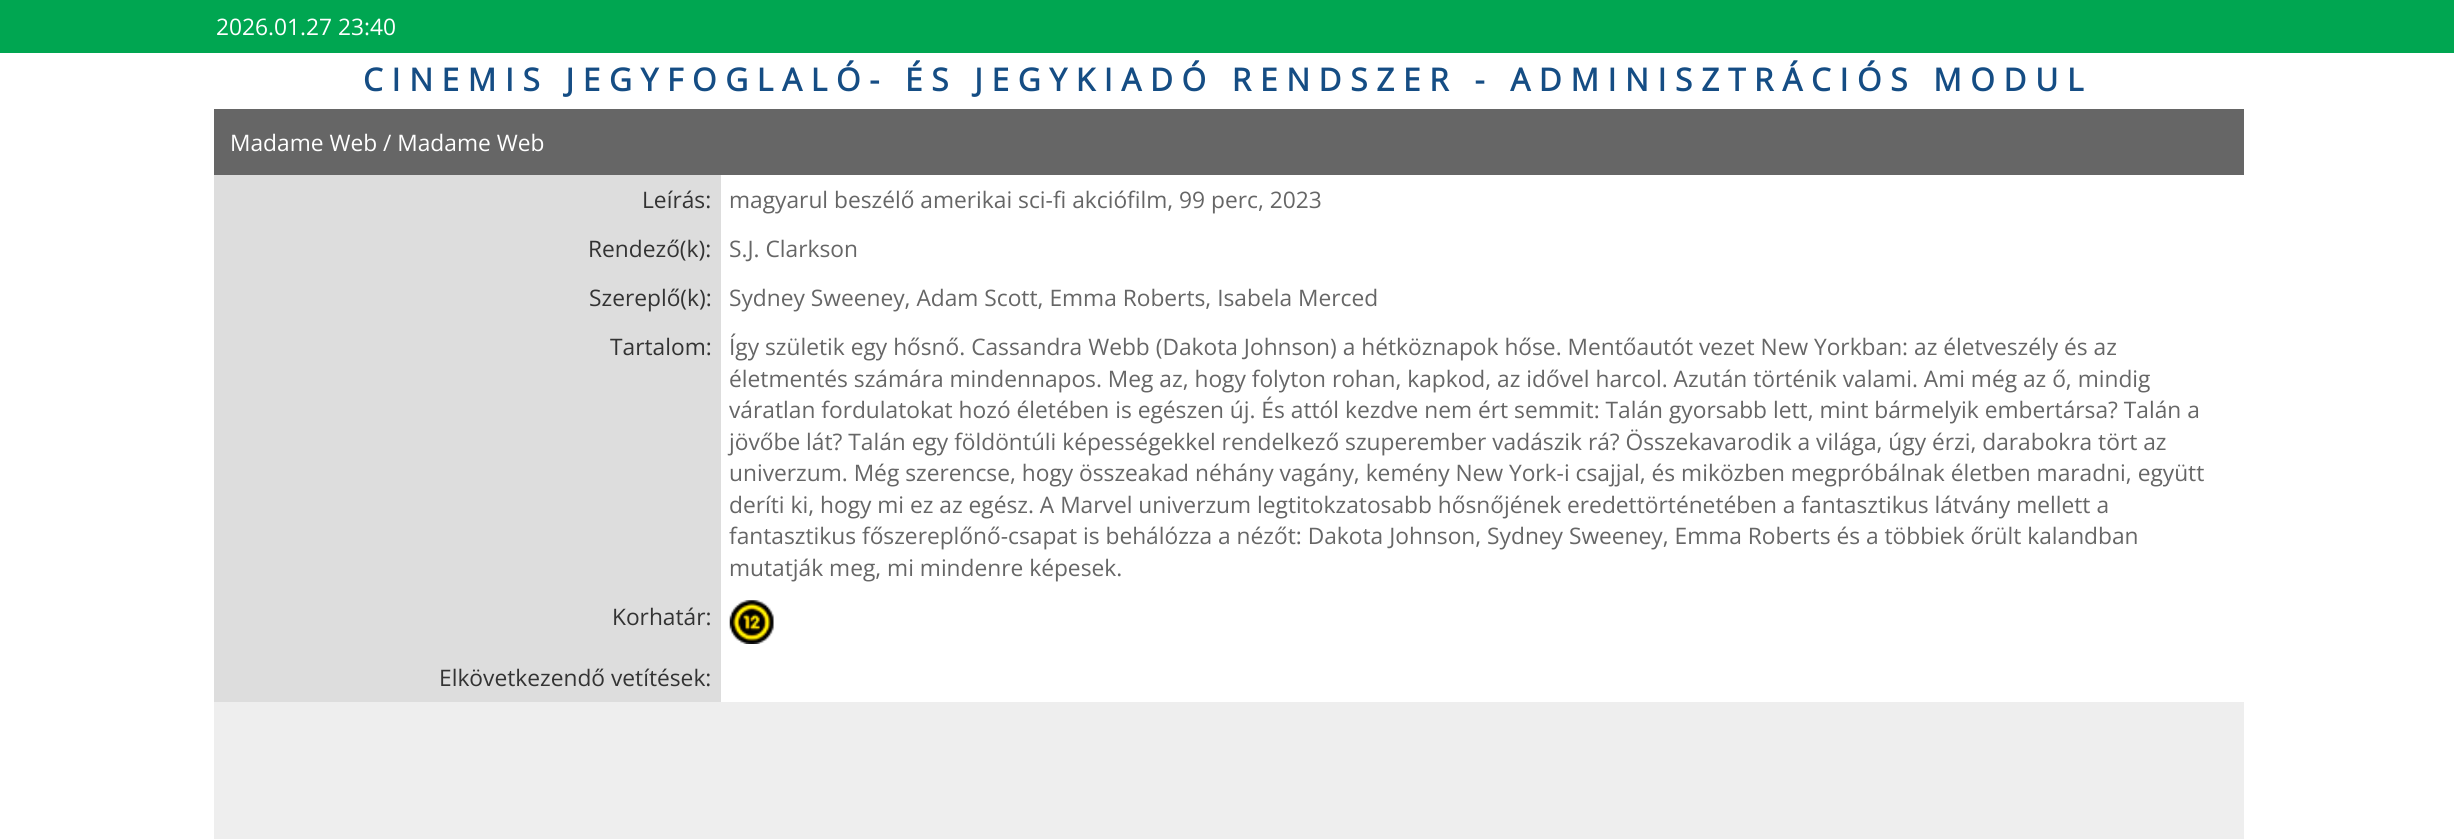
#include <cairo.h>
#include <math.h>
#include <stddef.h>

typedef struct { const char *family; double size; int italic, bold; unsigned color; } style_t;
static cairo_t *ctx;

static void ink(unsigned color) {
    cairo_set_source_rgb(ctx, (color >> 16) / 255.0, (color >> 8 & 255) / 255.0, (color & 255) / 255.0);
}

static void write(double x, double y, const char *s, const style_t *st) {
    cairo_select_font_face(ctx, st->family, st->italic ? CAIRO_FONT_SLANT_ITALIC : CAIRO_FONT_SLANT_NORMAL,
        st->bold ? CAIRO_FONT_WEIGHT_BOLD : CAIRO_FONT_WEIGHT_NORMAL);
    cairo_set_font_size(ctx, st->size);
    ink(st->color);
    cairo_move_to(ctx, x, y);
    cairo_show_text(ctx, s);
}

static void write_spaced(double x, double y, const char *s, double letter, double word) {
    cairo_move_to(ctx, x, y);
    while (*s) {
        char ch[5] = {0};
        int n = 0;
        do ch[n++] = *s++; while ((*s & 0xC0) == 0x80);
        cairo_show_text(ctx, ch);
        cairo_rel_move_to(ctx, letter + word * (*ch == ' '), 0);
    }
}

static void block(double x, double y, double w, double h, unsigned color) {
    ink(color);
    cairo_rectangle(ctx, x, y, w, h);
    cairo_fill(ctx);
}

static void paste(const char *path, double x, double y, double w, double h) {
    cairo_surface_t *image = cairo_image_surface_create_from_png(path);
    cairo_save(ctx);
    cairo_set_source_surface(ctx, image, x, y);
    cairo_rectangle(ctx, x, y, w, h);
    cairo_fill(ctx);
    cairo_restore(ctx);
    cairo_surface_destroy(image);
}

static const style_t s1 = {"Open Sans", 22.75, 0, 0, 0xffffff};
static const style_t s2 = {"Open Sans", 22.75, 0, 0, 0x333333};
static const style_t s3 = {"Open Sans", 22.75, 0, 0, 0x666666};

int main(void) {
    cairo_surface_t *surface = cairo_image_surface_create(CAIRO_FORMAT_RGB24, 2454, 839);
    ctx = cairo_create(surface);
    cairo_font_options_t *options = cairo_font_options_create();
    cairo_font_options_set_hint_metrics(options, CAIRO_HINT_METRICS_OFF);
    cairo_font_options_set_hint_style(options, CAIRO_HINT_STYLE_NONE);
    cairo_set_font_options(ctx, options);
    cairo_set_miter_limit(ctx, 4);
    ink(0xffffff);
    cairo_paint(ctx);
    block(0, 0, 2454, 53, 0x00a651);
    write(216, 35, "2026.01.27 23:40", &s1);
    cairo_select_font_face(ctx, "Open Sans", CAIRO_FONT_SLANT_NORMAL, CAIRO_FONT_WEIGHT_BOLD);
    cairo_set_font_size(ctx, 31.5);
    ink(0x154d84);
    write_spaced(363, 91, "CINEMIS JEGYFOGLALÓ- ÉS JEGYKIADÓ RENDSZER - ADMINISZTRÁCIÓS MODUL", 8.75, 0);
    block(214, 109, 2030, 66, 0x666666);
    write(230, 151, "Madame Web / Madame Web", &s1);
    block(214, 175, 507, 527, 0xdddddd);
    write(642, 208, "Leírás:", &s2);
    write(729, 208, "magyarul beszélő amerikai sci-fi akciófilm, 99 perc, 2023", &s3);
    write(588, 257, "Rendező(k):", &s2);
    write(729, 257, "S.J. Clarkson", &s3);
    write(589, 306, "Szereplő(k):", &s2);
    write(729, 306, "Sydney Sweeney, Adam Scott, Emma Roberts, Isabela Merced", &s3);
    write(610, 355, "Tartalom:", &s2);
    write(729, 355, "Így születik egy hősnő. Cassandra Webb (Dakota Johnson) a hétköznapok hőse. Mentőautót vezet New Yorkban: az életveszély és az", &s3);
    write(729, 387, "életmentés számára mindennapos. Meg az, hogy folyton rohan, kapkod, az idővel harcol. Azután történik valami. Ami még az ő, mindig", &s3);
    write(729, 418, "váratlan fordulatokat hozó életében is egészen új. És attól kezdve nem ért semmit: Talán gyorsabb lett, mint bármelyik embertársa? Talán a", &s3);
    write(729, 450, "jövőbe lát? Talán egy földöntúli képességekkel rendelkező szuperember vadászik rá? Összekavarodik a világa, úgy érzi, darabokra tört az", &s3);
    write(729, 481, "univerzum. Még szerencse, hogy összeakad néhány vagány, kemény New York-i csajjal, és miközben megpróbálnak életben maradni, együtt", &s3);
    write(729, 513, "deríti ki, hogy mi ez az egész. A Marvel univerzum legtitokzatosabb hősnőjének eredettörténetében a fantasztikus látvány mellett a", &s3);
    write(729, 544, "fantasztikus főszereplőnő-csapat is behálózza a nézőt: Dakota Johnson, Sydney Sweeney, Emma Roberts és a többiek őrült kalandban", &s3);
    write(729, 576, "mutatják meg, mi mindenre képesek.", &s3);
    write(612, 625, "Korhatár:", &s2);
    paste("pic1.png", 729, 600, 45, 44);
    write(439, 686, "Elkövetkezendő vetítések:", &s2);
    block(214, 702, 2030, 137, 0xeeeeee);
    cairo_surface_write_to_png(surface, "screenshot.png");
    cairo_font_options_destroy(options);
    cairo_destroy(ctx);
    cairo_surface_destroy(surface);
    return 0;
}
